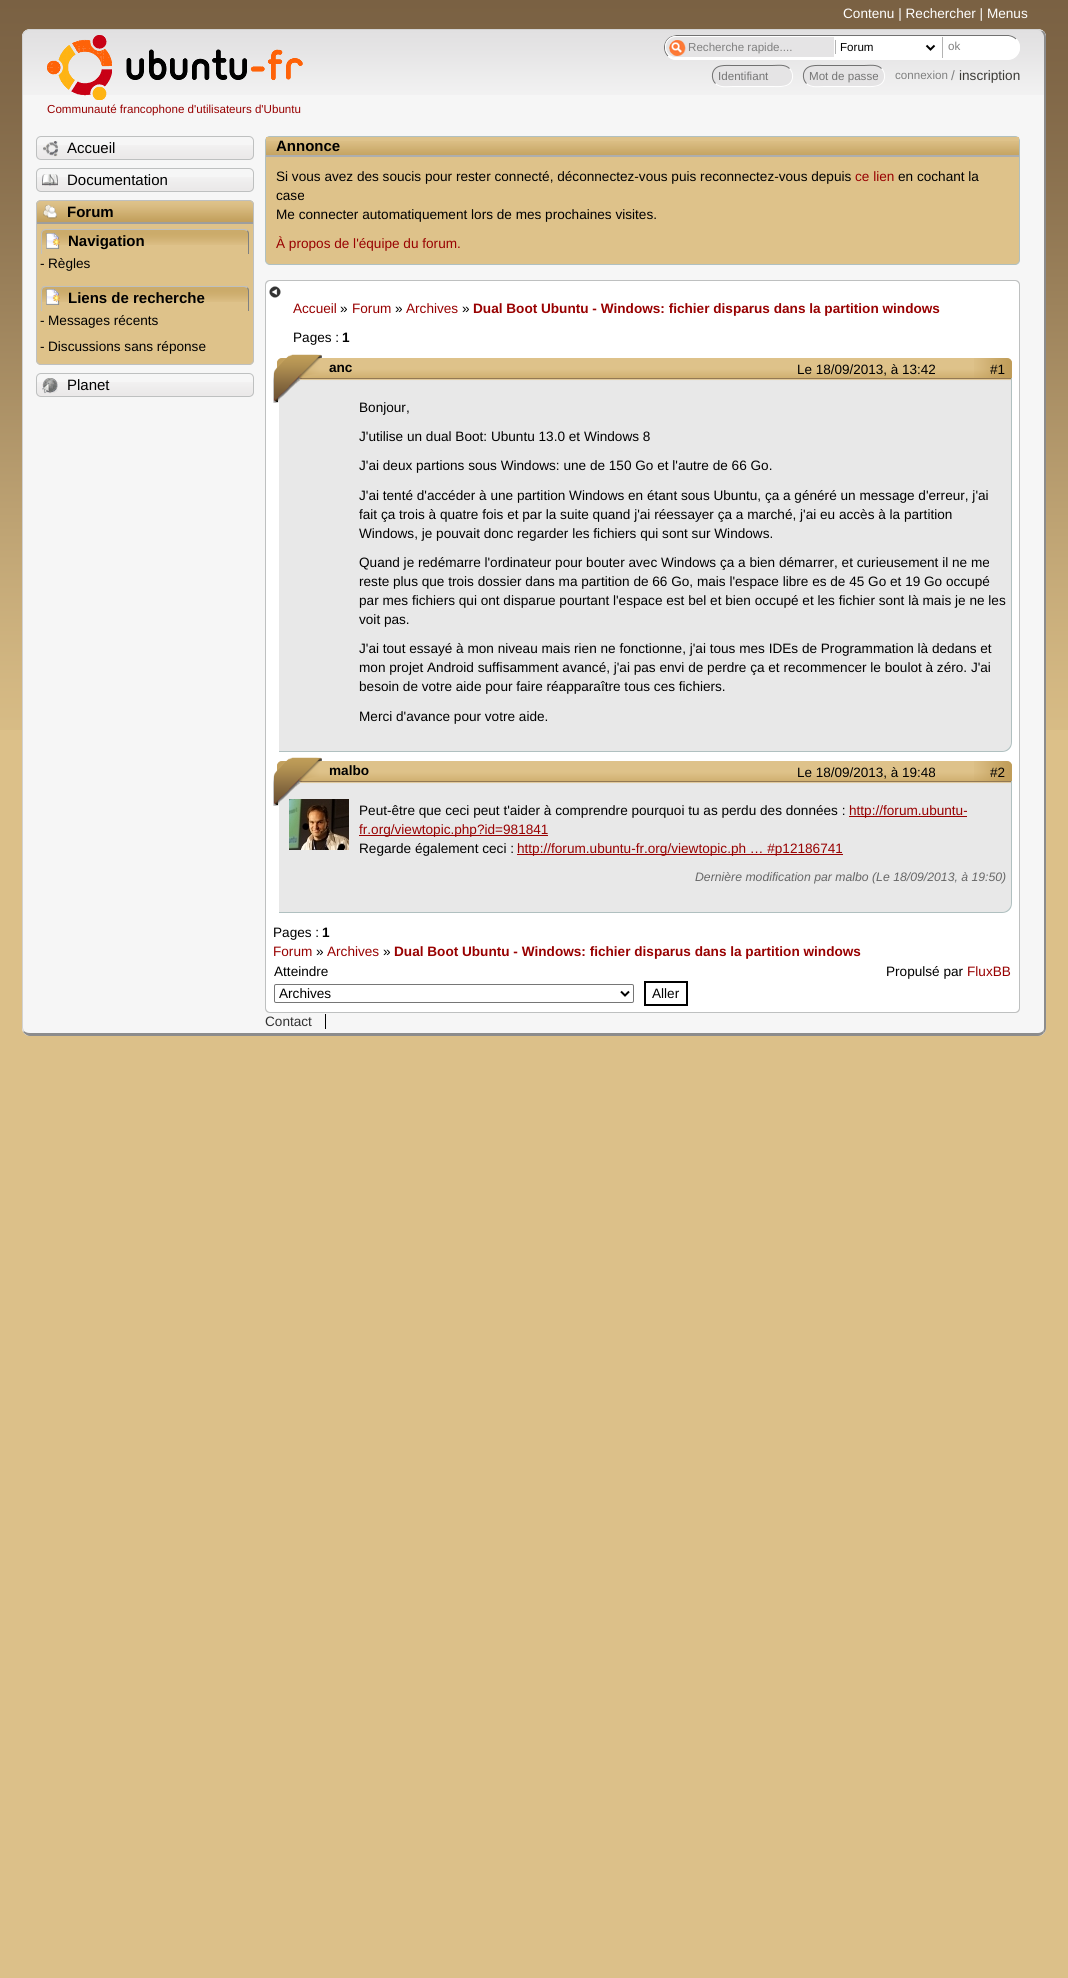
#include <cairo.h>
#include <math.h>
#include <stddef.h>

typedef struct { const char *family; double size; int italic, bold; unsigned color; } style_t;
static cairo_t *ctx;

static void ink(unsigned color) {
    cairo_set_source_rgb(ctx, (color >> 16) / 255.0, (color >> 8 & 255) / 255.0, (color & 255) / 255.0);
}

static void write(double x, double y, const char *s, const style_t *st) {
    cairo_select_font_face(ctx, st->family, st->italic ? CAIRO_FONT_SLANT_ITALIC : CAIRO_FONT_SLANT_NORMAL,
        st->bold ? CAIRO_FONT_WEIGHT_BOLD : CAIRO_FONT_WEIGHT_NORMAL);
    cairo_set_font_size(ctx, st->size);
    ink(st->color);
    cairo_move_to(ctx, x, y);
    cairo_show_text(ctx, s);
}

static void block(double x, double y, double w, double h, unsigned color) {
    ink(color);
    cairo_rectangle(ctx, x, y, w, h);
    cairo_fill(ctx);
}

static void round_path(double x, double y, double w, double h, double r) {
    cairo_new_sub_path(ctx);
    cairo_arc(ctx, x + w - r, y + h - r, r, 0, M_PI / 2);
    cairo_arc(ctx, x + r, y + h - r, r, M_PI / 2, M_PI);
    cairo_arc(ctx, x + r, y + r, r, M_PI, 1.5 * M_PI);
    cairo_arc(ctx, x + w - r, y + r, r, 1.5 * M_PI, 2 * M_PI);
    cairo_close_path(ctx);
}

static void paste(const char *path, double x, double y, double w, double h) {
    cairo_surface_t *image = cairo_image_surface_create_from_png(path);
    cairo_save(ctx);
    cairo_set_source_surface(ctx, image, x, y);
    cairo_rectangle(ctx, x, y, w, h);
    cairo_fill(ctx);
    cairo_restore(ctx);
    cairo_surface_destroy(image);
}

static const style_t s1 = {"Liberation Sans", 13.6, 0, 0, 0xffffff};
static const style_t s2 = {"Liberation Sans", 11.6, 0, 0, 0x808080};
static const style_t s3 = {"Liberation Sans", 11.6, 0, 0, 0x000000};
static const style_t s4 = {"Liberation Sans", 11.6, 0, 0, 0x757575};
static const style_t s5 = {"Liberation Sans", 13.6, 0, 0, 0x808080};
static const style_t s6 = {"Liberation Sans", 13.6, 0, 0, 0x3c3b37};
static const style_t s7 = {"Liberation Sans", 11.6, 0, 0, 0x980101};
static const style_t s8 = {"Liberation Sans", 15, 0, 0, 0x000000};
static const style_t s9 = {"Liberation Sans", 15, 0, 1, 0x000000};
static const style_t s10 = {"Liberation Sans", 13.6, 0, 0, 0x000000};
static const style_t s11 = {"Liberation Sans", 13.6, 0, 0, 0x980101};
static const style_t s12 = {"Liberation Sans", 13.6, 0, 1, 0x980101};
static const style_t s13 = {"Liberation Sans", 13.6, 0, 1, 0x000000};
static const style_t s14 = {"Liberation Sans", 13.5, 0, 0, 0x000000};
static const style_t s15 = {"Liberation Sans", 12.25, 1, 0, 0x666666};
static const style_t s16 = {"Liberation Sans", 13.6, 0, 0, 0x323232};

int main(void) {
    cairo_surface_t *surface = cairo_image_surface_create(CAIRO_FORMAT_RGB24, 1068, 1978);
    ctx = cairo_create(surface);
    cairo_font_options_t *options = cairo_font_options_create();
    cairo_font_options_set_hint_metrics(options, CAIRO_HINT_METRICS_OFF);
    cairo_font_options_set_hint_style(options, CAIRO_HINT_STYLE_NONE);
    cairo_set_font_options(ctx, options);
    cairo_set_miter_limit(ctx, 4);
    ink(0xdcc089);
    cairo_paint(ctx);
    paste("pic1.png", 0, 0, 1068, 730);
    write(843, 18, "Contenu | Rechercher | Menus", &s1);
    ink(0xf6f6f6);
    round_path(22, 29, 1024, 1007, 8);
    cairo_fill(ctx);
    paste("pic2.png", 22, 30, 1024, 65);
    ink(0xd2d2d2);
    cairo_new_path(ctx);
    cairo_move_to(ctx, 30, 29);
    cairo_curve_to(ctx, 28, 29, 26, 30, 24, 32);
    cairo_line_to(ctx, 25, 32);
    cairo_curve_to(ctx, 26, 31, 28, 30, 30, 30);
    cairo_line_to(ctx, 1038, 30);
    cairo_line_to(ctx, 1041, 31);
    cairo_line_to(ctx, 1043, 31);
    cairo_curve_to(ctx, 1041, 30, 1040, 29, 1038, 29);
    cairo_close_path(ctx);
    cairo_fill(ctx);
    ink(0x8c8c8c);
    cairo_new_path(ctx);
    cairo_move_to(ctx, 1046, 1028);
    cairo_line_to(ctx, 1046, 37);
    cairo_curve_to(ctx, 1046, 35, 1045, 32, 1043, 31);
    cairo_line_to(ctx, 1041, 31);
    cairo_curve_to(ctx, 1043, 33, 1044, 35, 1044, 37);
    cairo_line_to(ctx, 1044, 1028);
    cairo_curve_to(ctx, 1044, 1029, 1044, 1030, 1043, 1031);
    cairo_line_to(ctx, 1044, 1033);
    cairo_curve_to(ctx, 1045, 1032, 1046, 1030, 1046, 1028);
    cairo_close_path(ctx);
    cairo_fill(ctx);
    cairo_new_path(ctx);
    cairo_move_to(ctx, 30, 1036);
    cairo_line_to(ctx, 1038, 1036);
    cairo_curve_to(ctx, 1040, 1036, 1042, 1035, 1044, 1033);
    cairo_line_to(ctx, 1043, 1031);
    cairo_curve_to(ctx, 1042, 1032, 1040, 1033, 1038, 1033);
    cairo_line_to(ctx, 30, 1033);
    cairo_curve_to(ctx, 27, 1033, 25, 1032, 24, 1031);
    cairo_line_to(ctx, 23, 1032);
    cairo_curve_to(ctx, 25, 1034, 27, 1036, 30, 1036);
    cairo_close_path(ctx);
    cairo_fill(ctx);
    ink(0xd2d2d2);
    cairo_new_path(ctx);
    cairo_move_to(ctx, 22, 37);
    cairo_line_to(ctx, 22, 1028);
    cairo_line_to(ctx, 23, 1032);
    cairo_line_to(ctx, 24, 1031);
    cairo_line_to(ctx, 23, 1028);
    cairo_line_to(ctx, 23, 37);
    cairo_curve_to(ctx, 23, 35, 24, 33, 25, 32);
    cairo_line_to(ctx, 24, 32);
    cairo_curve_to(ctx, 23, 33, 22, 35, 22, 37);
    cairo_close_path(ctx);
    cairo_fill(ctx);
    ink(0xffffff);
    round_path(664, 35, 356, 25, 12.5);
    cairo_fill(ctx);
    cairo_new_path(ctx);
    cairo_move_to(ctx, 1016, 39);
    cairo_curve_to(ctx, 1022, 45, 1020, 55.5, 1012, 58.5);
    cairo_line_to(ctx, 1007.5, 59.5);
    cairo_line_to(ctx, 675.5, 59.5);
    cairo_curve_to(ctx, 672.5, 59, 670, 58, 668, 56);
    cairo_set_line_width(ctx, 1);
    cairo_stroke(ctx);
    cairo_new_path(ctx);
    cairo_move_to(ctx, 668, 56);
    cairo_curve_to(ctx, 662, 50, 664, 39.5, 672, 36.5);
    cairo_line_to(ctx, 676.5, 35.5);
    cairo_line_to(ctx, 1008.5, 35.5);
    cairo_curve_to(ctx, 1011.5, 36, 1014, 37, 1016, 39);
    ink(0x717171);
    cairo_stroke(ctx);
    ink(0xe5e4e5);
    cairo_new_path(ctx);
    cairo_move_to(ctx, 676, 36);
    cairo_line_to(ctx, 835, 36);
    cairo_line_to(ctx, 835, 58);
    cairo_line_to(ctx, 676, 58);
    cairo_curve_to(ctx, 670, 58, 665, 53, 665, 47);
    cairo_curve_to(ctx, 665, 41, 670, 36, 676, 36);
    cairo_close_path(ctx);
    cairo_fill(ctx);
    paste("pic3.png", 669, 40, 17, 16);
    cairo_new_path(ctx);
    cairo_move_to(ctx, 676, 36.5);
    cairo_line_to(ctx, 834.5, 36.5);
    cairo_line_to(ctx, 834.5, 57.5);
    cairo_line_to(ctx, 676, 57.5);
    cairo_curve_to(ctx, 670, 57.5, 665.5, 53, 665.5, 47);
    cairo_curve_to(ctx, 665.5, 41, 670, 36.5, 676, 36.5);
    cairo_close_path(ctx);
    ink(0xffffff);
    cairo_stroke(ctx);
    write(688, 51, "Recherche rapide....", &s2);
    block(835, 40, 1, 14, 0xb3b3b3);
    cairo_new_path(ctx);
    cairo_move_to(ctx, 926.5, 45.5);
    cairo_line_to(ctx, 930.5, 49.5);
    cairo_line_to(ctx, 934.5, 45.5);
    ink(0x000000);
    cairo_set_line_width(ctx, 2);
    cairo_stroke(ctx);
    write(840, 51, "Forum", &s3);
    block(942, 37, 1, 21, 0xb3b3b3);
    write(948, 50, "ok", &s2);
    ink(0xe5e4e5);
    round_path(712, 65, 81, 22, 11);
    cairo_fill(ctx);
    cairo_new_path(ctx);
    cairo_move_to(ctx, 789.5, 68.5);
    cairo_curve_to(ctx, 792, 71, 793, 74.5, 792.5, 78);
    cairo_curve_to(ctx, 790.5, 88, 780, 86.5, 772, 86.5);
    cairo_line_to(ctx, 733, 86.5);
    cairo_curve_to(ctx, 727, 86.5, 720, 88, 715.5, 83.5);
    ink(0xffffff);
    cairo_set_line_width(ctx, 1);
    cairo_stroke(ctx);
    cairo_new_path(ctx);
    cairo_move_to(ctx, 715.5, 83.5);
    cairo_curve_to(ctx, 713, 81, 712, 77.5, 712.5, 74);
    cairo_curve_to(ctx, 714.5, 64, 725, 65.5, 733, 65.5);
    cairo_line_to(ctx, 772, 65.5);
    cairo_curve_to(ctx, 778, 65.5, 785, 64, 789.5, 68.5);
    ink(0x717171);
    cairo_stroke(ctx);
    write(718, 80, "Identifiant", &s4);
    ink(0xe5e4e5);
    round_path(803, 65, 82, 22, 11);
    cairo_fill(ctx);
    cairo_new_path(ctx);
    cairo_move_to(ctx, 881.5, 68.5);
    cairo_curve_to(ctx, 884, 71, 885, 74.5, 884.5, 78);
    cairo_curve_to(ctx, 882.5, 88, 871.5, 86.5, 864, 86.5);
    cairo_line_to(ctx, 824, 86.5);
    cairo_curve_to(ctx, 818.5, 86.5, 811, 88, 806.5, 83.5);
    ink(0xffffff);
    cairo_stroke(ctx);
    cairo_new_path(ctx);
    cairo_move_to(ctx, 806.5, 83.5);
    cairo_curve_to(ctx, 804, 81, 803, 77.5, 803.5, 74);
    cairo_curve_to(ctx, 805.5, 64, 816.5, 65.5, 824, 65.5);
    cairo_line_to(ctx, 864, 65.5);
    cairo_curve_to(ctx, 869.5, 65.5, 877, 64, 881.5, 68.5);
    ink(0x717171);
    cairo_stroke(ctx);
    write(809, 80, "Mot de passe", &s4);
    write(895, 79, "connexion", &s2);
    write(951, 80, "/", &s5);
    write(959, 80, "inscription", &s6);
    paste("pic4.png", 47, 35, 256, 65);
    write(47, 113, "Communauté francophone d'utilisateurs d'Ubuntu", &s7);
    paste("pic5.png", 36, 145, 218, 14);
    round_path(36.5, 136.5, 217, 23, 4.5);
    ink(0xbec0c0);
    cairo_stroke(ctx);
    paste("pic6.png", 43, 141, 15, 16);
    write(67, 153, "Accueil", &s8);
    paste("pic5.png", 36, 177, 218, 14);
    round_path(36.5, 168.5, 217, 23, 4.5);
    ink(0xbec0c0);
    cairo_stroke(ctx);
    paste("pic7.png", 42, 174, 16, 12);
    write(67, 185, "Documentation", &s8);
    ink(0xdec28a);
    round_path(36, 200, 218, 165, 5);
    cairo_fill(ctx);
    paste("pic8.png", 36, 201, 218, 21);
    round_path(36.5, 200.5, 217, 164, 4.5);
    ink(0xbec0c0);
    cairo_stroke(ctx);
    paste("pic9.png", 43, 204, 14, 15);
    block(37, 222, 216, 2, 0x9d9e9e);
    write(67, 217, "Forum", &s9);
    paste("pic10.png", 41, 230, 208, 15);
    ink(0xbec0c0);
    cairo_new_path(ctx);
    cairo_move_to(ctx, 46, 229);
    cairo_curve_to(ctx, 44, 229, 43, 230, 42, 230);
    cairo_line_to(ctx, 43, 231);
    cairo_line_to(ctx, 46, 230);
    cairo_line_to(ctx, 244, 230);
    cairo_line_to(ctx, 247, 231);
    cairo_line_to(ctx, 248, 230);
    cairo_curve_to(ctx, 247, 230, 246, 229, 244, 229);
    cairo_close_path(ctx);
    cairo_fill(ctx);
    ink(0x7f8080);
    cairo_new_path(ctx);
    cairo_move_to(ctx, 248, 254);
    cairo_line_to(ctx, 249, 254);
    cairo_line_to(ctx, 249, 234);
    cairo_curve_to(ctx, 249, 232.5, 248.5, 231, 247.5, 230.5);
    cairo_line_to(ctx, 247, 231);
    cairo_curve_to(ctx, 247.5, 232, 248, 233, 248, 234);
    cairo_close_path(ctx);
    cairo_fill(ctx);
    ink(0xbec0c0);
    cairo_new_path(ctx);
    cairo_move_to(ctx, 41, 254);
    cairo_line_to(ctx, 42, 254);
    cairo_line_to(ctx, 42, 234);
    cairo_curve_to(ctx, 42, 233, 42.5, 232, 43, 231);
    cairo_line_to(ctx, 42.5, 230.5);
    cairo_curve_to(ctx, 41.5, 231, 41, 232.5, 41, 234);
    cairo_close_path(ctx);
    cairo_fill(ctx);
    paste("pic11.png", 45, 233, 15, 16);
    write(68, 246, "Navigation", &s9);
    write(40, 268, "-", &s10);
    write(48, 268, "Règles", &s10);
    paste("pic10.png", 41, 287, 208, 15);
    ink(0xbec0c0);
    cairo_new_path(ctx);
    cairo_move_to(ctx, 46, 286);
    cairo_curve_to(ctx, 44, 286, 43, 286, 42, 287);
    cairo_line_to(ctx, 43, 288);
    cairo_line_to(ctx, 46, 287);
    cairo_line_to(ctx, 244, 287);
    cairo_line_to(ctx, 247, 288);
    cairo_line_to(ctx, 248, 287);
    cairo_curve_to(ctx, 247, 286, 246, 286, 244, 286);
    cairo_close_path(ctx);
    cairo_fill(ctx);
    ink(0x7f8080);
    cairo_new_path(ctx);
    cairo_move_to(ctx, 248, 311);
    cairo_line_to(ctx, 249, 311);
    cairo_line_to(ctx, 249, 291);
    cairo_curve_to(ctx, 249, 289.5, 248.5, 288, 247.5, 287.5);
    cairo_line_to(ctx, 247, 288);
    cairo_curve_to(ctx, 247.5, 289, 248, 290, 248, 291);
    cairo_close_path(ctx);
    cairo_fill(ctx);
    ink(0xbec0c0);
    cairo_new_path(ctx);
    cairo_move_to(ctx, 41, 311);
    cairo_line_to(ctx, 42, 311);
    cairo_line_to(ctx, 42, 291);
    cairo_curve_to(ctx, 42, 290, 42.5, 289, 43, 288);
    cairo_line_to(ctx, 42.5, 287.5);
    cairo_curve_to(ctx, 41.5, 288, 41, 289.5, 41, 291);
    cairo_close_path(ctx);
    cairo_fill(ctx);
    paste("pic12.png", 45, 289, 15, 16);
    write(68, 303, "Liens de recherche", &s9);
    write(40, 325, "-", &s10);
    write(48, 325, "Messages récents", &s10);
    write(40, 351, "-", &s10);
    write(48, 351, "Discussions sans réponse", &s10);
    paste("pic5.png", 36, 382, 218, 14);
    round_path(36.5, 373.5, 217, 23, 4.5);
    ink(0xbec0c0);
    cairo_stroke(ctx);
    paste("pic13.png", 42, 378, 16, 16);
    write(67, 390, "Planet", &s8);
    ink(0xdec28a);
    round_path(265.5, 136.5, 754, 128, 4.5);
    cairo_fill_preserve(ctx);
    ink(0xb0c0c0);
    cairo_stroke(ctx);
    block(266, 137, 753, 4, 0xdec28a);
    paste("pic14.png", 266, 141, 753, 14);
    block(266, 155, 753, 2, 0xadaeae);
    write(276, 151, "Annonce", &s9);
    write(276, 181, "Si vous avez des soucis pour rester connecté, déconnectez-vous puis reconnectez-vous depuis", &s10);
    write(855, 181, "ce lien", &s11);
    write(898, 181, "en cochant la", &s10);
    write(276, 200, "case", &s10);
    write(276, 219, "Me connecter automatiquement lors de mes prochaines visites.", &s10);
    write(276, 248, "À propos de l'équipe du forum.", &s11);
    ink(0xffffff);
    cairo_new_path(ctx);
    cairo_move_to(ctx, 270, 281);
    cairo_line_to(ctx, 1015, 281);
    cairo_curve_to(ctx, 1017, 281, 1019, 283, 1019, 285);
    cairo_line_to(ctx, 1019, 961);
    cairo_line_to(ctx, 266, 961);
    cairo_line_to(ctx, 266, 285);
    cairo_curve_to(ctx, 266, 283, 268, 281, 270, 281);
    cairo_close_path(ctx);
    cairo_fill(ctx);
    ink(0xbec0c0);
    cairo_set_fill_rule(ctx, CAIRO_FILL_RULE_EVEN_ODD);
    cairo_new_path(ctx);
    cairo_move_to(ctx, 270, 280);
    cairo_line_to(ctx, 1015, 280);
    cairo_curve_to(ctx, 1018, 280, 1020, 282, 1020, 285);
    cairo_line_to(ctx, 1020, 961);
    cairo_line_to(ctx, 265, 961);
    cairo_line_to(ctx, 265, 285);
    cairo_curve_to(ctx, 265, 282, 267, 280, 270, 280);
    cairo_close_path(ctx);
    cairo_move_to(ctx, 270, 281);
    cairo_line_to(ctx, 1015, 281);
    cairo_curve_to(ctx, 1017, 281, 1019, 283, 1019, 285);
    cairo_line_to(ctx, 1019, 961);
    cairo_line_to(ctx, 266, 961);
    cairo_line_to(ctx, 266, 285);
    cairo_curve_to(ctx, 266, 283, 268, 281, 270, 281);
    cairo_close_path(ctx);
    cairo_fill(ctx);
    paste("pic15.png", 269, 286, 12, 12);
    write(293, 313, "Accueil", &s11);
    write(340, 313, "»", &s10);
    write(352, 313, "Forum", &s11);
    write(395, 313, "»", &s10);
    write(406, 313, "Archives", &s11);
    write(462, 313, "»", &s10);
    write(473, 313, "Dual Boot Ubuntu - Windows: fichier disparus dans la partition windows", &s12);
    write(293, 342, "Pages :", &s10);
    write(342, 342, "1", &s13);
    ink(0xe8e8e8);
    cairo_new_path(ctx);
    cairo_move_to(ctx, 289, 354);
    cairo_line_to(ctx, 1011, 354);
    cairo_line_to(ctx, 1011, 742);
    cairo_curve_to(ctx, 1011, 747, 1007, 751, 1002, 751);
    cairo_line_to(ctx, 279, 751);
    cairo_line_to(ctx, 279, 364);
    cairo_curve_to(ctx, 279, 358.5, 283.5, 354, 289, 354);
    cairo_close_path(ctx);
    cairo_fill(ctx);
    paste("pic16.png", 298, 354, 713, 27);
    ink(0xb0c0c0);
    cairo_new_path(ctx);
    cairo_move_to(ctx, 289, 354);
    cairo_line_to(ctx, 1012, 354);
    cairo_line_to(ctx, 1012, 742);
    cairo_curve_to(ctx, 1012, 748, 1008, 752, 1002, 752);
    cairo_line_to(ctx, 279, 752);
    cairo_line_to(ctx, 279, 364);
    cairo_curve_to(ctx, 279, 358, 283, 354, 289, 354);
    cairo_close_path(ctx);
    cairo_move_to(ctx, 289, 354);
    cairo_line_to(ctx, 1011, 354);
    cairo_line_to(ctx, 1011, 742);
    cairo_curve_to(ctx, 1011, 747, 1007, 751, 1002, 751);
    cairo_line_to(ctx, 279, 751);
    cairo_line_to(ctx, 279, 364);
    cairo_curve_to(ctx, 279, 358, 283, 354, 289, 354);
    cairo_close_path(ctx);
    cairo_fill(ctx);
    write(329, 372, "anc", &s13);
    write(359, 412, "Bonjour,", &s10);
    write(359, 441, "J'utilise un dual Boot: Ubuntu 13.0 et Windows 8", &s10);
    write(359, 470, "J'ai deux partions sous Windows: une de 150 Go et l'autre de 66 Go.", &s10);
    write(359, 500, "J'ai tenté d'accéder à une partition Windows en étant sous Ubuntu, ça a généré un message d'erreur, j'ai", &s10);
    write(359, 519, "fait ça trois à quatre fois et par la suite quand j'ai réessayer ça a marché, j'ai eu accès à la partition", &s10);
    write(359, 538, "Windows, je pouvait donc regarder les fichiers qui sont sur Windows.", &s10);
    write(359, 567, "Quand je redémarre l'ordinateur pour bouter avec Windows ça a bien démarrer, et curieusement il ne me", &s10);
    write(359, 586, "reste plus que trois dossier dans ma partition de 66 Go, mais l'espace libre es de 45 Go et 19 Go occupé", &s10);
    write(359, 605, "par mes fichiers qui ont disparue pourtant l'espace est bel et bien occupé et les fichier sont là mais je ne les", &s10);
    write(359, 624, "voit pas.", &s10);
    write(359, 653, "J'ai tout essayé à mon niveau mais rien ne fonctionne, j'ai tous mes IDEs de Programmation là dedans et", &s10);
    write(359, 672, "mon projet Android suffisamment avancé, j'ai pas envi de perdre ça et recommencer le boulot à zéro. J'ai", &s10);
    write(359, 691, "besoin de votre aide pour faire réapparaître tous ces fichiers.", &s10);
    write(359, 721, "Merci d'avance pour votre aide.", &s10);
    paste("pic17.png", 273, 354, 49, 49);
    write(797, 374, "Le 18/09/2013, à 13:42", &s14);
    paste("pic18.png", 974, 354, 38, 24);
    write(990, 374, "#1", &s14);
    ink(0xe8e8e8);
    cairo_new_path(ctx);
    cairo_move_to(ctx, 289, 757);
    cairo_line_to(ctx, 1011, 757);
    cairo_line_to(ctx, 1011, 903);
    cairo_curve_to(ctx, 1011, 908, 1007, 912, 1002, 912);
    cairo_line_to(ctx, 279, 912);
    cairo_line_to(ctx, 279, 767);
    cairo_curve_to(ctx, 279, 761.5, 283.5, 757, 289, 757);
    cairo_close_path(ctx);
    cairo_fill(ctx);
    paste("pic16.png", 298, 757, 713, 27);
    ink(0xb0c0c0);
    cairo_new_path(ctx);
    cairo_move_to(ctx, 289, 757);
    cairo_line_to(ctx, 1012, 757);
    cairo_line_to(ctx, 1012, 903);
    cairo_curve_to(ctx, 1012, 909, 1008, 913, 1002, 913);
    cairo_line_to(ctx, 279, 913);
    cairo_line_to(ctx, 279, 767);
    cairo_curve_to(ctx, 279, 761, 283, 757, 289, 757);
    cairo_close_path(ctx);
    cairo_move_to(ctx, 289, 757);
    cairo_line_to(ctx, 1011, 757);
    cairo_line_to(ctx, 1011, 903);
    cairo_curve_to(ctx, 1011, 908, 1007, 912, 1002, 912);
    cairo_line_to(ctx, 279, 912);
    cairo_line_to(ctx, 279, 767);
    cairo_curve_to(ctx, 279, 761, 283, 757, 289, 757);
    cairo_close_path(ctx);
    cairo_fill(ctx);
    write(329, 775, "malbo", &s13);
    paste("pic17.png", 273, 757, 49, 49);
    paste("pic19.png", 289, 799, 60, 51);
    write(359, 815, "Peut-être que ceci peut t'aider à comprendre pourquoi tu as perdu des données :", &s10);
    block(849, 816, 118, 1, 0x980101);
    write(849, 815, "http://forum.ubuntu-", &s11);
    block(359, 835, 189, 1, 0x980101);
    write(359, 834, "fr.org/viewtopic.php?id=981841", &s11);
    write(359, 853, "Regarde également ceci :", &s10);
    block(517, 854, 326, 1, 0x980101);
    write(517, 853, "http://forum.ubuntu-fr.org/viewtopic.ph … #p12186741", &s11);
    write(695, 881, "Dernière modification par malbo (Le 18/09/2013, à 19:50)", &s15);
    write(797, 777, "Le 18/09/2013, à 19:48", &s14);
    paste("pic18.png", 974, 757, 38, 24);
    write(990, 777, "#2", &s14);
    write(273, 937, "Pages :", &s10);
    write(322, 937, "1", &s13);
    write(273, 956, "Forum", &s11);
    write(316, 956, "»", &s10);
    write(327, 956, "Archives", &s11);
    write(383, 956, "»", &s10);
    write(394, 956, "Dual Boot Ubuntu - Windows: fichier disparus dans la partition windows", &s12);
    block(266, 961, 753, 46, 0xffffff);
    block(1019, 961, 1, 46, 0xbec0c0);
    block(265, 961, 1, 46, 0xbec0c0);
    write(274, 976, "Atteindre", &s10);
    round_path(274.5, 984.5, 359, 18, 1.5);
    ink(0x767676);
    cairo_stroke(ctx);
    cairo_new_path(ctx);
    cairo_move_to(ctx, 621, 991.5);
    cairo_line_to(ctx, 625, 995.5);
    cairo_line_to(ctx, 629, 991.5);
    ink(0x000000);
    cairo_set_line_width(ctx, 2);
    cairo_stroke(ctx);
    write(279, 998, "Archives", &s10);
    cairo_rectangle(ctx, 645, 982, 42, 23);
    cairo_stroke(ctx);
    write(652, 998, "Aller", &s10);
    write(886, 976, "Propulsé par", &s10);
    write(967, 976, "FluxBB", &s11);
    ink(0xffffff);
    cairo_new_path(ctx);
    cairo_move_to(ctx, 266, 1007);
    cairo_line_to(ctx, 1019, 1007);
    cairo_line_to(ctx, 1019, 1008);
    cairo_curve_to(ctx, 1019, 1010, 1017, 1012, 1015, 1012);
    cairo_line_to(ctx, 270, 1012);
    cairo_curve_to(ctx, 268, 1012, 266, 1010, 266, 1008);
    cairo_close_path(ctx);
    cairo_fill(ctx);
    ink(0xbec0c0);
    cairo_new_path(ctx);
    cairo_move_to(ctx, 265, 1007);
    cairo_line_to(ctx, 1020, 1007);
    cairo_line_to(ctx, 1020, 1008);
    cairo_curve_to(ctx, 1020, 1011, 1018, 1013, 1015, 1013);
    cairo_line_to(ctx, 270, 1013);
    cairo_curve_to(ctx, 267, 1013, 265, 1011, 265, 1008);
    cairo_close_path(ctx);
    cairo_move_to(ctx, 266, 1007);
    cairo_line_to(ctx, 1019, 1007);
    cairo_line_to(ctx, 1019, 1008);
    cairo_curve_to(ctx, 1019, 1010, 1017, 1012, 1015, 1012);
    cairo_line_to(ctx, 270, 1012);
    cairo_curve_to(ctx, 268, 1012, 266, 1010, 266, 1008);
    cairo_close_path(ctx);
    cairo_fill(ctx);
    write(265, 1026, "Contact", &s16);
    block(325, 1014, 1, 15, 0x000000);
    cairo_surface_write_to_png(surface, "screenshot.png");
    cairo_font_options_destroy(options);
    cairo_destroy(ctx);
    cairo_surface_destroy(surface);
    return 0;
}
